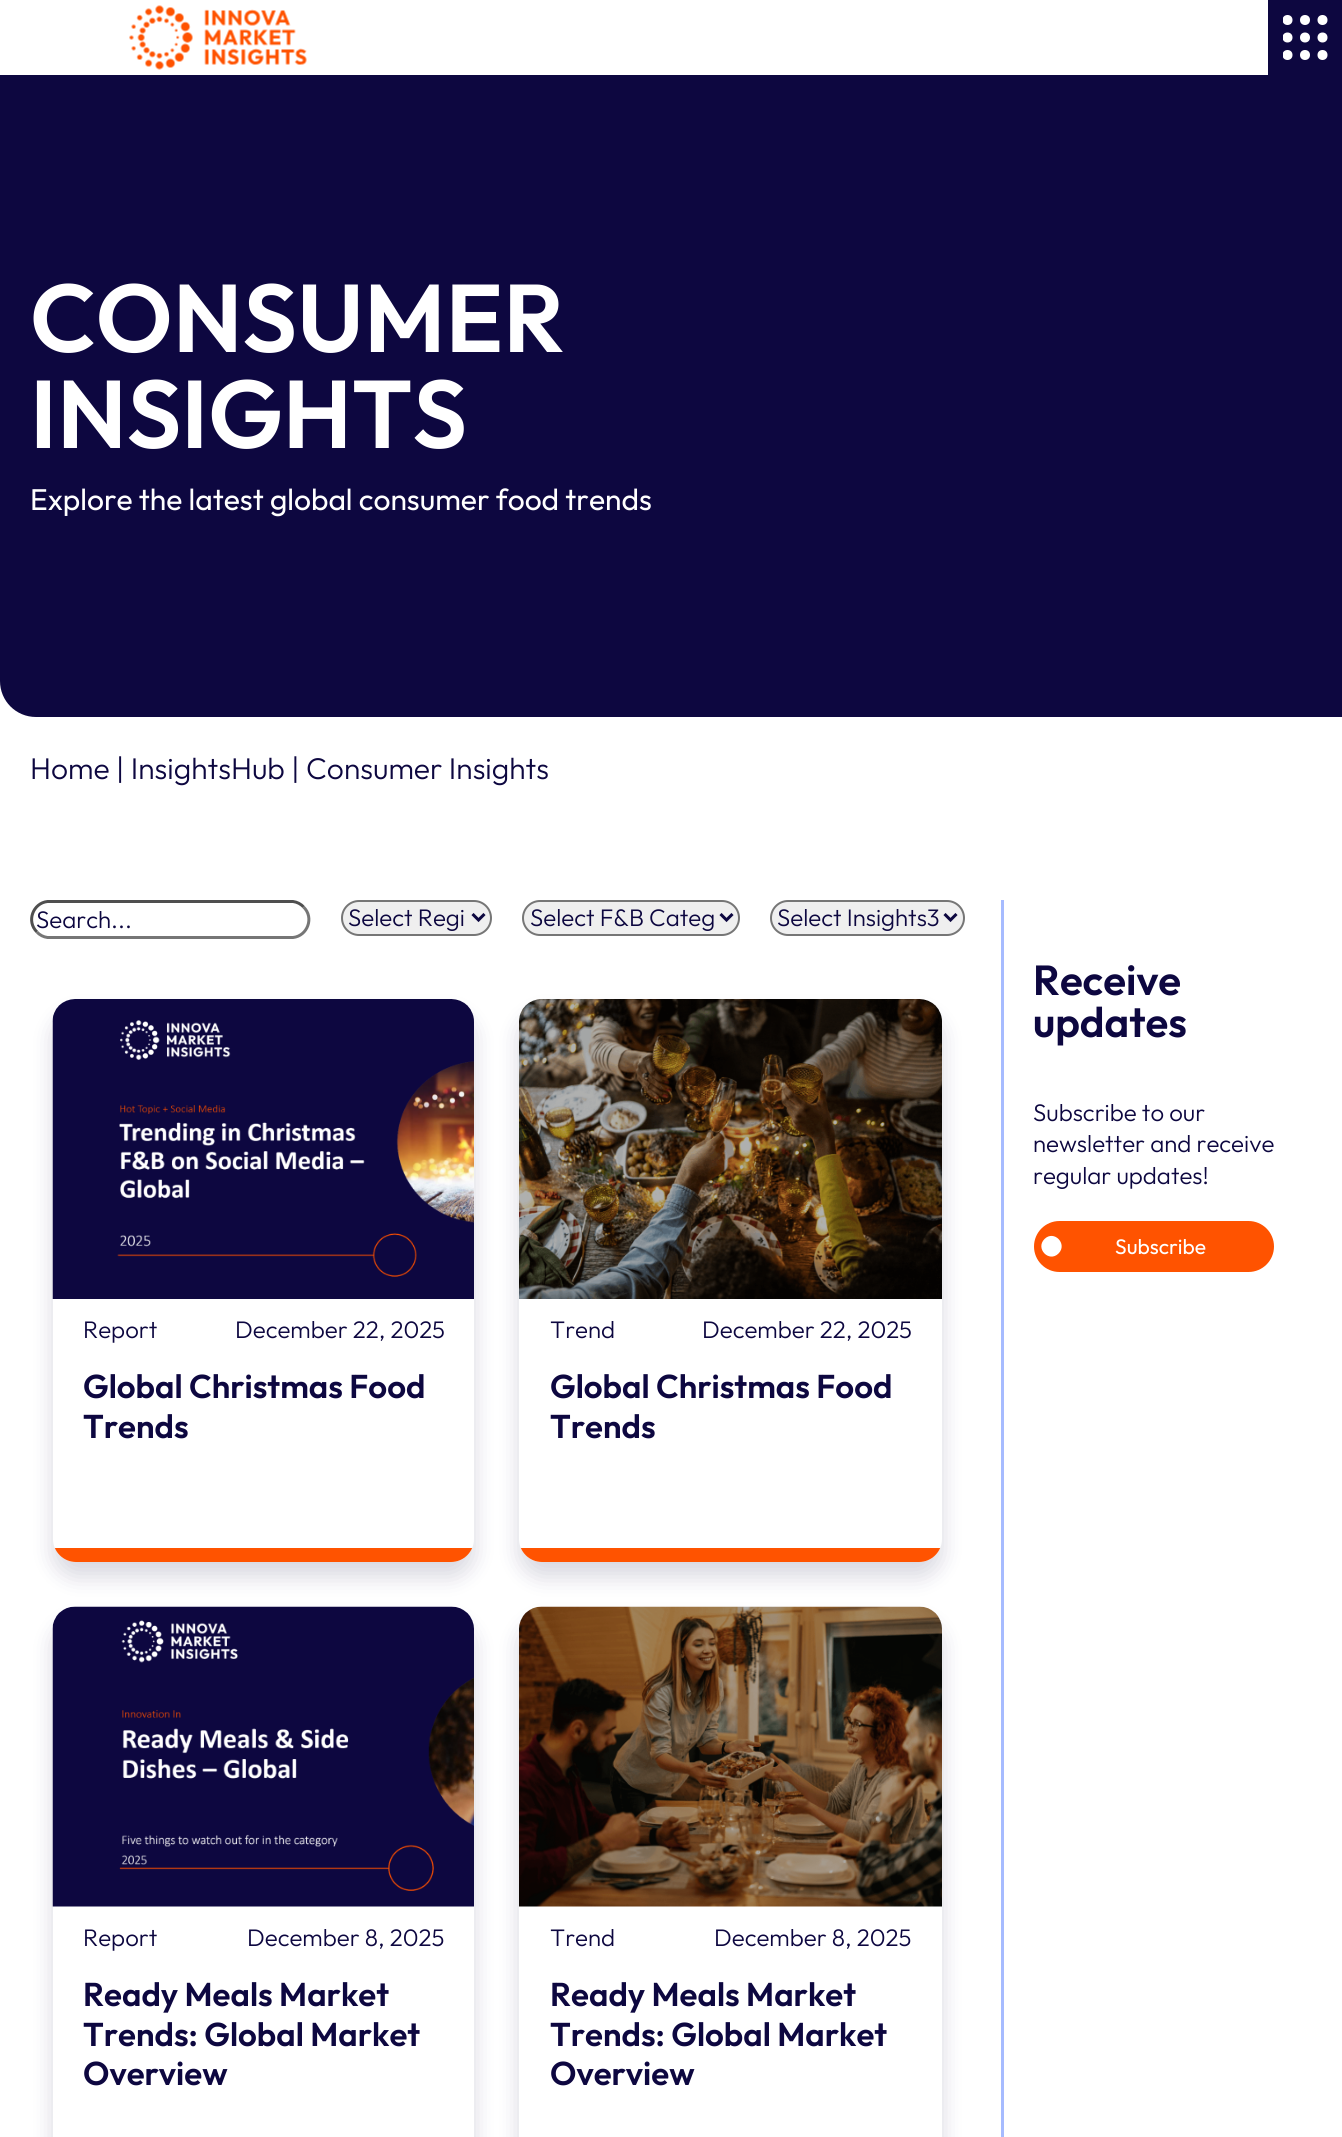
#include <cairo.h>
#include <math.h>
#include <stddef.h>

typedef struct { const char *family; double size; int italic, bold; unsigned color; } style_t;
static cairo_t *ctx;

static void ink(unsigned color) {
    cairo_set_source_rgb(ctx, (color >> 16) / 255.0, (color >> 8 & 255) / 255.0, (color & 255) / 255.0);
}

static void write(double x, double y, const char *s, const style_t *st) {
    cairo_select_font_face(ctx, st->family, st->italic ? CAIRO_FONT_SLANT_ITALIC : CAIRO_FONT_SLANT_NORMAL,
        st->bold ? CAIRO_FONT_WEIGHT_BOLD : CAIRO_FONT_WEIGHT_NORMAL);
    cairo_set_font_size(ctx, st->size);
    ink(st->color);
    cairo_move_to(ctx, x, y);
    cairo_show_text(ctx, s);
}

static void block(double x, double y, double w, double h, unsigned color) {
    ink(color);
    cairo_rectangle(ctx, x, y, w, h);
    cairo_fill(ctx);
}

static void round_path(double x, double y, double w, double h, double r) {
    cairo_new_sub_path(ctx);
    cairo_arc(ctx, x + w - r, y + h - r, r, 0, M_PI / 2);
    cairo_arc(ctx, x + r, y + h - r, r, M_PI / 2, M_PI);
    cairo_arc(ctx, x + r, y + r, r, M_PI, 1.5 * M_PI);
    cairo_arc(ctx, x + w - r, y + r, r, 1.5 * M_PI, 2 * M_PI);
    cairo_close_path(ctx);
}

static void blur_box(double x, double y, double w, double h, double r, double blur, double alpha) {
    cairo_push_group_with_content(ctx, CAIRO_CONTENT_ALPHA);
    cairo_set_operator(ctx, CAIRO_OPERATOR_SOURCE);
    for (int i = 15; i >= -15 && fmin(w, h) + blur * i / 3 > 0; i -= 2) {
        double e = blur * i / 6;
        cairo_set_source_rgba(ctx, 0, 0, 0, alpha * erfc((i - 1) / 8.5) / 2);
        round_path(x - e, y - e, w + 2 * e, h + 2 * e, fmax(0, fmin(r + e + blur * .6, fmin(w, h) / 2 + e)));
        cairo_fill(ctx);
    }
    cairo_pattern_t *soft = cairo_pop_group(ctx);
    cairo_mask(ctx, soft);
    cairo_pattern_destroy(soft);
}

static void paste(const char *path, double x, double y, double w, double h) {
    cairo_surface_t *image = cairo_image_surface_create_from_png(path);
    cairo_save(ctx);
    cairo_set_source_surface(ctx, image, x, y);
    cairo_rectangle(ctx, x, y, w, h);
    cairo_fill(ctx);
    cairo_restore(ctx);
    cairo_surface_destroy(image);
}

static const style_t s1 = {"Outfit SemiBold", 96, 0, 0, 0xffffff};
static const style_t s2 = {"Outfit", 30, 0, 0, 0xffffff};
static const style_t s3 = {"Outfit Light", 30, 0, 0, 0x0d0740};
static const style_t s4 = {"Outfit Light", 24, 0, 0, 0x0d0740};
static const style_t s5 = {"Outfit SemiBold", 33, 0, 0, 0x0d0740};
static const style_t s6 = {"Outfit SemiBold", 42, 0, 0, 0x0d0740};
static const style_t s7 = {"Outfit", 21, 0, 0, 0xffffff};

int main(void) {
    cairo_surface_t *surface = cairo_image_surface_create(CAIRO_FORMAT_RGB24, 1342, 2137);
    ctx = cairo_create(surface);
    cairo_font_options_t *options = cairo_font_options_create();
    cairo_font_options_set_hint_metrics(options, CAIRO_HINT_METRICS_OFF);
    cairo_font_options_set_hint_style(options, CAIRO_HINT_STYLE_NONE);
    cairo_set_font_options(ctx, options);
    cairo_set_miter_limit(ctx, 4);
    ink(0xffffff);
    cairo_paint(ctx);
    paste("pic1.png", 129, 5, 178, 65);
    block(1268, 0, 74, 75, 0x0d0740);
    cairo_save(ctx);
    cairo_rectangle(ctx, 1283, 15, 45, 45);
    cairo_clip(ctx);
    ink(0xffffff);
    cairo_arc(ctx, 1287.5, 20, 5, 0, 2 * M_PI);
    cairo_fill(ctx);
    cairo_arc(ctx, 1287.5, 37.5, 5, 0, 2 * M_PI);
    cairo_fill(ctx);
    cairo_arc(ctx, 1287.5, 55, 5, 0, 2 * M_PI);
    cairo_fill(ctx);
    cairo_restore(ctx);
    ink(0xffffff);
    cairo_arc(ctx, 1305, 20, 5, 0, 2 * M_PI);
    cairo_fill(ctx);
    cairo_arc(ctx, 1305, 37.5, 5, 0, 2 * M_PI);
    cairo_fill(ctx);
    cairo_arc(ctx, 1305, 55, 5, 0, 2 * M_PI);
    cairo_fill(ctx);
    cairo_arc(ctx, 1322.5, 20, 5, 0, 2 * M_PI);
    cairo_fill(ctx);
    cairo_arc(ctx, 1322.5, 37.5, 5, 0, 2 * M_PI);
    cairo_fill(ctx);
    cairo_arc(ctx, 1322.5, 55, 5, 0, 2 * M_PI);
    cairo_fill(ctx);
    ink(0x0d0740);
    cairo_new_path(ctx);
    cairo_move_to(ctx, 0, 75);
    cairo_line_to(ctx, 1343, 75);
    cairo_line_to(ctx, 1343, 717);
    cairo_line_to(ctx, 36, 717);
    cairo_curve_to(ctx, 16, 717, 0, 701, 0, 681);
    cairo_close_path(ctx);
    cairo_fill(ctx);
    write(30, 352, "CONSUMER", &s1);
    write(30, 448, "INSIGHTS", &s1);
    write(30, 510, "Explore the latest global consumer food trends", &s2);
    write(30, 779, "Home | InsightsHub | Consumer Insights", &s3);
    cairo_new_path(ctx);
    cairo_move_to(ctx, 303.5, 907);
    cairo_curve_to(ctx, 314.5, 917.5, 307.5, 936, 293, 937.5);
    cairo_line_to(ctx, 47.5, 937.5);
    cairo_curve_to(ctx, 43.5, 937, 39.5, 935, 37, 932);
    ink(0x767676);
    cairo_set_line_width(ctx, 3);
    cairo_stroke(ctx);
    cairo_new_path(ctx);
    cairo_move_to(ctx, 37, 932);
    cairo_curve_to(ctx, 26, 921.5, 33, 903, 47.5, 901.5);
    cairo_line_to(ctx, 293, 901.5);
    cairo_curve_to(ctx, 297, 902, 301, 904, 303.5, 907);
    ink(0x4f4f4f);
    cairo_stroke(ctx);
    write(36, 928, "Search...", &s4);
    ink(0xefefef);
    round_path(342, 901, 149, 34, 17);
    cairo_fill_preserve(ctx);
    ink(0x767676);
    cairo_set_line_width(ctx, 2);
    cairo_stroke(ctx);
    cairo_new_path(ctx);
    cairo_move_to(ctx, 472.5, 914);
    cairo_line_to(ctx, 478.5, 920);
    cairo_line_to(ctx, 484.5, 914);
    ink(0x0d0740);
    cairo_set_line_width(ctx, 3);
    cairo_stroke(ctx);
    write(348, 926, "Select Regi", &s4);
    ink(0xefefef);
    round_path(523, 901, 216, 34, 17);
    cairo_fill_preserve(ctx);
    ink(0x767676);
    cairo_set_line_width(ctx, 2);
    cairo_stroke(ctx);
    cairo_new_path(ctx);
    cairo_move_to(ctx, 720.5, 914);
    cairo_line_to(ctx, 726.5, 920);
    cairo_line_to(ctx, 732.5, 914);
    ink(0x0d0740);
    cairo_set_line_width(ctx, 3);
    cairo_stroke(ctx);
    write(530, 926, "Select F&B Categ", &s4);
    ink(0xefefef);
    round_path(771, 901, 193, 34, 17);
    cairo_fill_preserve(ctx);
    ink(0x767676);
    cairo_set_line_width(ctx, 2);
    cairo_stroke(ctx);
    cairo_new_path(ctx);
    cairo_move_to(ctx, 944.5, 914);
    cairo_line_to(ctx, 950.5, 920);
    cairo_line_to(ctx, 956.5, 914);
    ink(0x0d0740);
    cairo_set_line_width(ctx, 3);
    cairo_stroke(ctx);
    write(777, 926, "Select Insights3", &s4);
    ink(0x0d0740);
    blur_box(53, 1014, 421, 563, 23, 11, 0.16);
    ink(0xffffff);
    round_path(53, 999, 421, 563, 23);
    cairo_fill(ctx);
    paste("pic2.png", 52, 999, 422, 300);
    write(83, 1338, "Report", &s4);
    write(235, 1338, "December 22, 2025", &s4);
    write(83, 1398, "Global Christmas Food", &s5);
    write(83, 1438, "Trends", &s5);
    cairo_save(ctx);
    round_path(53, 999, 421, 563, 23);
    cairo_clip(ctx);
    block(54, 1548, 419, 14, 0xff5300);
    cairo_restore(ctx);
    ink(0x0d0740);
    blur_box(519, 1014, 423, 563, 23, 11, 0.16);
    ink(0xffffff);
    round_path(519, 999, 423, 563, 23);
    cairo_fill(ctx);
    paste("pic3.png", 519, 999, 423, 300);
    write(550, 1338, "Trend", &s4);
    write(702, 1338, "December 22, 2025", &s4);
    write(550, 1398, "Global Christmas Food", &s5);
    write(550, 1438, "Trends", &s5);
    cairo_save(ctx);
    round_path(519, 999, 423, 563, 23);
    cairo_clip(ctx);
    block(520, 1548, 421, 14, 0xff5300);
    cairo_restore(ctx);
    cairo_save(ctx);
    cairo_set_fill_rule(ctx, CAIRO_FILL_RULE_EVEN_ODD);
    cairo_new_path(ctx);
    cairo_move_to(ctx, 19, 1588);
    cairo_line_to(ctx, 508, 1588);
    cairo_line_to(ctx, 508, 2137);
    cairo_line_to(ctx, 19, 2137);
    cairo_close_path(ctx);
    cairo_move_to(ctx, 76, 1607);
    cairo_line_to(ctx, 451, 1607);
    cairo_curve_to(ctx, 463.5, 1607, 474, 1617.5, 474, 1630);
    cairo_line_to(ctx, 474, 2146);
    cairo_curve_to(ctx, 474, 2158.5, 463.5, 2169, 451, 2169);
    cairo_line_to(ctx, 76, 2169);
    cairo_curve_to(ctx, 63.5, 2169, 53, 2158.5, 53, 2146);
    cairo_line_to(ctx, 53, 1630);
    cairo_curve_to(ctx, 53, 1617.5, 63.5, 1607, 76, 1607);
    cairo_close_path(ctx);
    cairo_clip(ctx);
    ink(0x0d0740);
    blur_box(53, 1622, 421, 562, 23, 11, 0.16);
    cairo_restore(ctx);
    paste("pic4.png", 52, 1606, 422, 301);
    write(83, 1946, "Report", &s4);
    write(247, 1946, "December 8, 2025", &s4);
    write(83, 2006, "Ready Meals Market", &s5);
    write(83, 2046, "Trends: Global Market", &s5);
    write(83, 2085, "Overview", &s5);
    cairo_save(ctx);
    cairo_set_fill_rule(ctx, CAIRO_FILL_RULE_EVEN_ODD);
    cairo_new_path(ctx);
    cairo_move_to(ctx, 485, 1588);
    cairo_line_to(ctx, 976, 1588);
    cairo_line_to(ctx, 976, 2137);
    cairo_line_to(ctx, 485, 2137);
    cairo_close_path(ctx);
    cairo_move_to(ctx, 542, 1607);
    cairo_line_to(ctx, 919, 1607);
    cairo_curve_to(ctx, 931.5, 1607, 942, 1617.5, 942, 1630);
    cairo_line_to(ctx, 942, 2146);
    cairo_curve_to(ctx, 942, 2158.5, 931.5, 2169, 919, 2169);
    cairo_line_to(ctx, 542, 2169);
    cairo_curve_to(ctx, 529.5, 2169, 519, 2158.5, 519, 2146);
    cairo_line_to(ctx, 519, 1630);
    cairo_curve_to(ctx, 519, 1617.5, 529.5, 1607, 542, 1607);
    cairo_close_path(ctx);
    cairo_clip(ctx);
    ink(0x0d0740);
    blur_box(519, 1622, 423, 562, 23, 11, 0.16);
    cairo_restore(ctx);
    paste("pic5.png", 519, 1606, 423, 301);
    write(550, 1946, "Trend", &s4);
    write(714, 1946, "December 8, 2025", &s4);
    write(550, 2006, "Ready Meals Market", &s5);
    write(550, 2046, "Trends: Global Market", &s5);
    write(550, 2085, "Overview", &s5);
    block(1001, 900, 3, 1237, 0xa6bbff);
    write(1033, 995, "Receive", &s6);
    write(1033, 1037, "updates", &s6);
    write(1033, 1121, "Subscribe to our", &s4);
    write(1033, 1152, "newsletter and receive", &s4);
    write(1033, 1184, "regular updates!", &s4);
    ink(0xff5300);
    round_path(1034, 1221, 240, 51, 25.5);
    cairo_fill(ctx);
    ink(0xffffff);
    cairo_new_path(ctx);
    cairo_move_to(ctx, 1044.5, 1239);
    cairo_curve_to(ctx, 1054, 1229.5, 1068, 1244, 1058.5, 1253.5);
    cairo_curve_to(ctx, 1049, 1263, 1035, 1248.5, 1044.5, 1239);
    cairo_close_path(ctx);
    cairo_fill(ctx);
    write(1115, 1254, "Subscribe", &s7);
    cairo_surface_write_to_png(surface, "screenshot.png");
    cairo_font_options_destroy(options);
    cairo_destroy(ctx);
    cairo_surface_destroy(surface);
    return 0;
}
